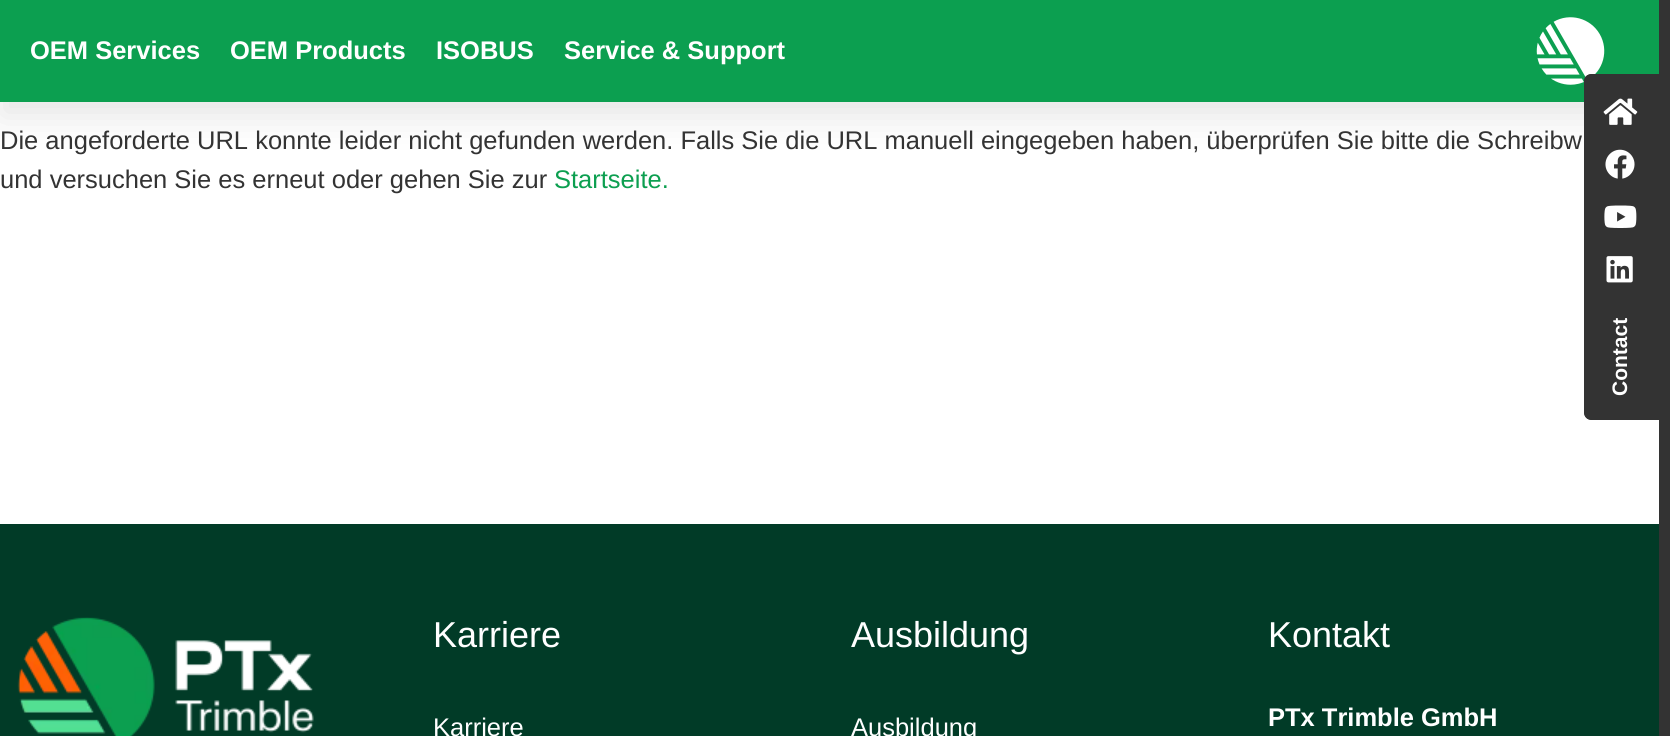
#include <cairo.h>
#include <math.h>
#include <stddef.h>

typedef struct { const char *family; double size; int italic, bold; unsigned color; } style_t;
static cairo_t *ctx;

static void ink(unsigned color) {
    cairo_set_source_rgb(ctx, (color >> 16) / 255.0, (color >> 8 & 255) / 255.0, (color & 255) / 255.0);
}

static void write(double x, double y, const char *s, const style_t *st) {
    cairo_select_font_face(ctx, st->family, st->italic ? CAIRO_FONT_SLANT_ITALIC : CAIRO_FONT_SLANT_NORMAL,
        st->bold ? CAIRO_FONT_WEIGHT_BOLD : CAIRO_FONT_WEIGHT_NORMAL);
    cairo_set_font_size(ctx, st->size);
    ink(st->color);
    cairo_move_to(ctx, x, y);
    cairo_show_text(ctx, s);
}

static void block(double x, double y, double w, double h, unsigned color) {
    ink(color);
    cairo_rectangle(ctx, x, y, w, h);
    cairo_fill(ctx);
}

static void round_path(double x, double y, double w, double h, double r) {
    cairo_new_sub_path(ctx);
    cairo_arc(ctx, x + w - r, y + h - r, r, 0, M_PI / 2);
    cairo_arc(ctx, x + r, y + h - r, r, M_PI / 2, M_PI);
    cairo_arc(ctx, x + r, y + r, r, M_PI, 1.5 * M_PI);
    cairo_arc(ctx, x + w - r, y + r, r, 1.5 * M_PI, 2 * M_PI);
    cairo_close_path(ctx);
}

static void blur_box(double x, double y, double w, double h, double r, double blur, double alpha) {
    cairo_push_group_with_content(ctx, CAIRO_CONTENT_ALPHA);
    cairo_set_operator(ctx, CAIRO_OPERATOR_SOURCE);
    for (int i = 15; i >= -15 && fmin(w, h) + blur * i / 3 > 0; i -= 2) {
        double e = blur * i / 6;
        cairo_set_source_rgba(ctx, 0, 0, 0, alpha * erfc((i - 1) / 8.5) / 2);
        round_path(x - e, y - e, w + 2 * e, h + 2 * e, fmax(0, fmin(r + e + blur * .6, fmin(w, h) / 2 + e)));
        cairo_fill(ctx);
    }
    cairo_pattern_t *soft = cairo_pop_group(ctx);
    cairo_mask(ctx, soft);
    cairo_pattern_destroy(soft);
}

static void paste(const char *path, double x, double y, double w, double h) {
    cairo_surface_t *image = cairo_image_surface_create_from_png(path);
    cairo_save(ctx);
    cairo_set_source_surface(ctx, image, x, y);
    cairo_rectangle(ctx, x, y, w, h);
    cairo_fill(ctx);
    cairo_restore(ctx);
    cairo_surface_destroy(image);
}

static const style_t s1 = {"Liberation Sans", 25.5, 0, 1, 0xffffff};
static const style_t s2 = {"Liberation Sans", 25.5, 0, 0, 0x333333};
static const style_t s3 = {"Liberation Sans", 25.5, 0, 0, 0x0c9f50};
static const style_t s4 = {"Liberation Sans", 36, 0, 0, 0xffffff};
static const style_t s5 = {"Liberation Sans", 25.5, 0, 0, 0xffffff};
static const style_t s6 = {"Liberation Sans", 21, 0, 1, 0xffffff};

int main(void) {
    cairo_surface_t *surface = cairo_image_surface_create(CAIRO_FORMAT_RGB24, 1670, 736);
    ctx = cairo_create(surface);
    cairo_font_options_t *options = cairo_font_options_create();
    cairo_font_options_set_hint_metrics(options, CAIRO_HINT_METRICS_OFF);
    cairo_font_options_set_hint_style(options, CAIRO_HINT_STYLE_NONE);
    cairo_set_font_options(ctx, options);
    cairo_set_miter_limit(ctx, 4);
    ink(0xffffff);
    cairo_paint(ctx);
    ink(0x000000);
    blur_box(0, 15, 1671, 102, 0, 18, 0.1);
    block(0, 0, 1659, 102, 0x0c9f50);
    write(30, 59, "OEM Services", &s1);
    write(230, 59, "OEM Products", &s1);
    write(436, 59, "ISOBUS", &s1);
    write(564, 59, "Service & Support", &s1);
    paste("pic1.png", 1536, 17, 69, 68);
    write(0, 149, "Die angeforderte URL konnte leider nicht gefunden werden. Falls Sie die URL manuell eingegeben haben, überprüfen Sie bitte die Schreibw", &s2);
    write(0, 188, "und versuchen Sie es erneut oder gehen Sie zur", &s2);
    write(554, 188, "Startseite.", &s3);
    block(0, 524, 1659, 212, 0x013b27);
    paste("pic2.png", 17, 617, 297, 119);
    write(433, 647, "Karriere", &s4);
    write(433, 736, "Karriere", &s5);
    write(851, 647, "Ausbildung", &s4);
    write(851, 736, "Ausbildung", &s5);
    write(1268, 647, "Kontakt", &s4);
    write(1268, 726, "PTx Trimble GmbH", &s1);
    block(1659, 0, 11, 736, 0x333333);
    cairo_new_path(ctx);
    cairo_move_to(ctx, 1592, 74);
    cairo_line_to(ctx, 1659, 74);
    cairo_line_to(ctx, 1659, 420);
    cairo_line_to(ctx, 1592, 420);
    cairo_curve_to(ctx, 1587.5, 420, 1584, 416.5, 1584, 412);
    cairo_line_to(ctx, 1584, 82);
    cairo_curve_to(ctx, 1584, 77.5, 1587.5, 74, 1592, 74);
    cairo_close_path(ctx);
    cairo_fill(ctx);
    cairo_set_fill_rule(ctx, CAIRO_FILL_RULE_EVEN_ODD);
    cairo_new_path(ctx);
    cairo_move_to(ctx, 1592, 74);
    cairo_line_to(ctx, 1659, 74);
    cairo_line_to(ctx, 1659, 420);
    cairo_line_to(ctx, 1592, 420);
    cairo_curve_to(ctx, 1587, 420, 1584, 417, 1584, 412);
    cairo_line_to(ctx, 1584, 81);
    cairo_curve_to(ctx, 1584, 77, 1587, 74, 1592, 74);
    cairo_close_path(ctx);
    cairo_move_to(ctx, 1592, 75);
    cairo_line_to(ctx, 1659, 75);
    cairo_line_to(ctx, 1659, 418);
    cairo_line_to(ctx, 1592, 418);
    cairo_curve_to(ctx, 1588, 418, 1586, 416, 1586, 412);
    cairo_line_to(ctx, 1586, 81);
    cairo_curve_to(ctx, 1586, 78, 1588, 75, 1592, 75);
    cairo_close_path(ctx);
    cairo_fill(ctx);
    paste("pic3.png", 1603, 98, 35, 27);
    paste("pic4.png", 1605, 149, 30, 30);
    paste("pic5.png", 1604, 205, 33, 23);
    paste("pic6.png", 1606, 256, 27, 27);
    cairo_save(ctx);
    cairo_translate(ctx, 1627, 396);
    cairo_rotate(ctx, -90 * M_PI / 180);
    write(0, 0, "Contact", &s6);
    cairo_restore(ctx);
    cairo_surface_write_to_png(surface, "screenshot.png");
    cairo_font_options_destroy(options);
    cairo_destroy(ctx);
    cairo_surface_destroy(surface);
    return 0;
}
